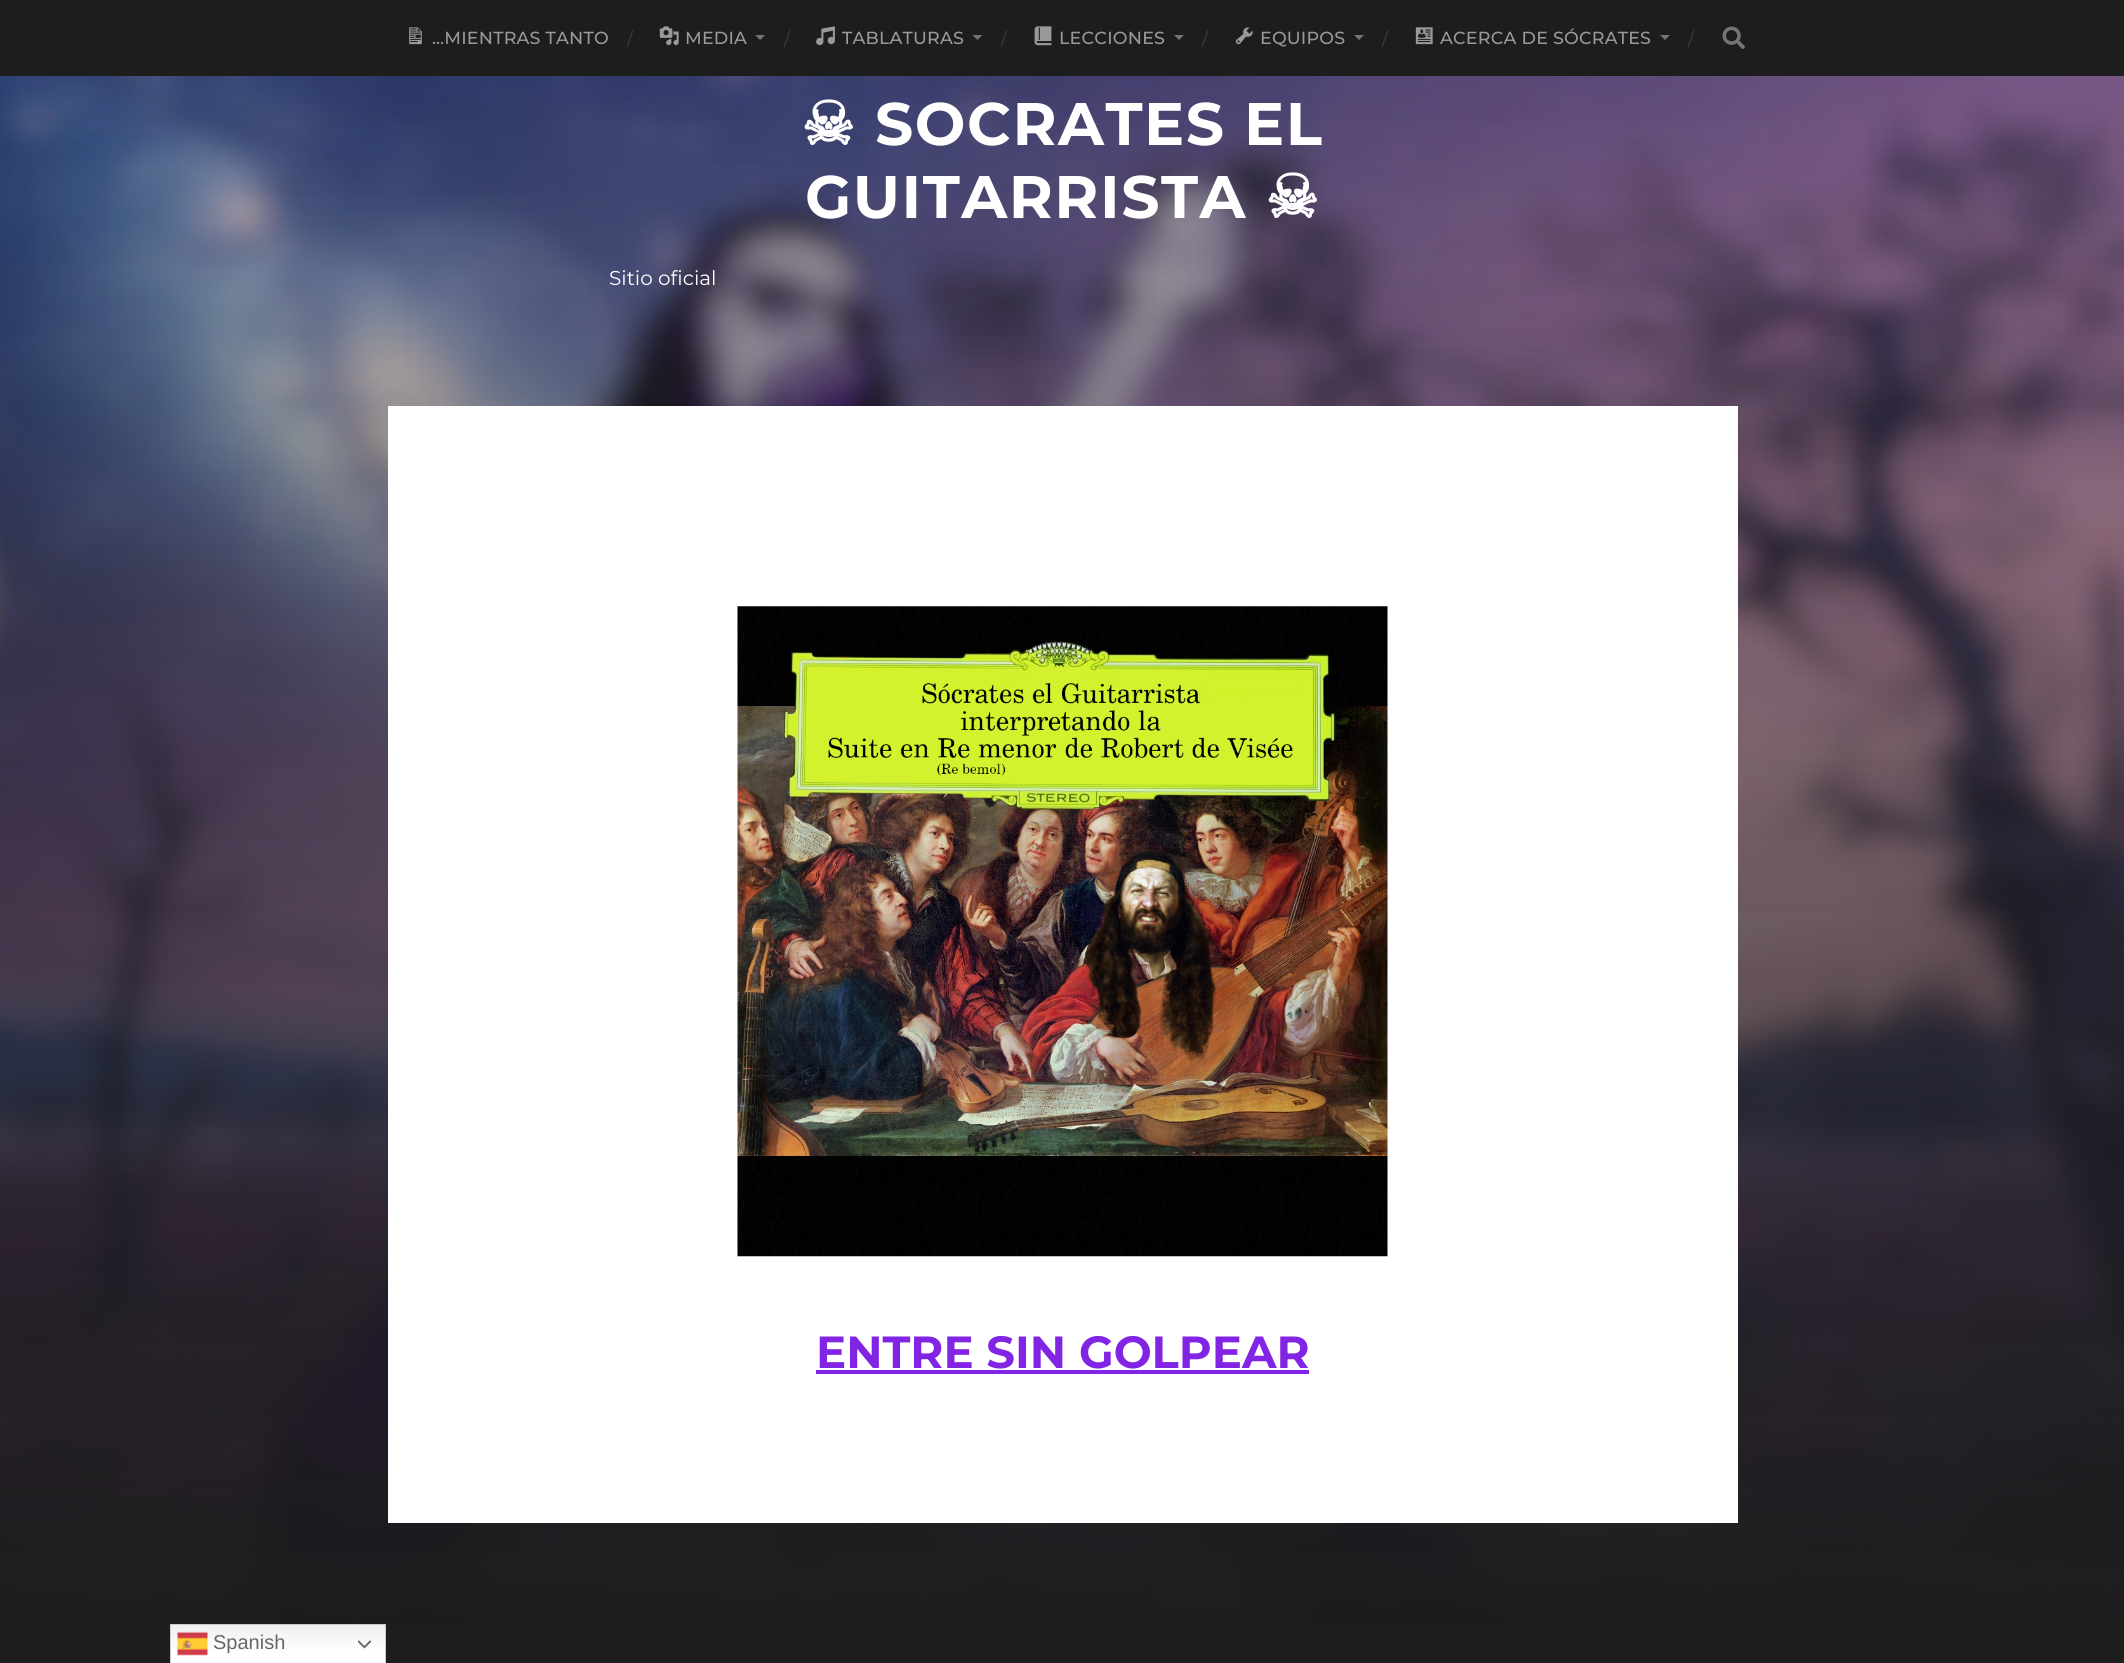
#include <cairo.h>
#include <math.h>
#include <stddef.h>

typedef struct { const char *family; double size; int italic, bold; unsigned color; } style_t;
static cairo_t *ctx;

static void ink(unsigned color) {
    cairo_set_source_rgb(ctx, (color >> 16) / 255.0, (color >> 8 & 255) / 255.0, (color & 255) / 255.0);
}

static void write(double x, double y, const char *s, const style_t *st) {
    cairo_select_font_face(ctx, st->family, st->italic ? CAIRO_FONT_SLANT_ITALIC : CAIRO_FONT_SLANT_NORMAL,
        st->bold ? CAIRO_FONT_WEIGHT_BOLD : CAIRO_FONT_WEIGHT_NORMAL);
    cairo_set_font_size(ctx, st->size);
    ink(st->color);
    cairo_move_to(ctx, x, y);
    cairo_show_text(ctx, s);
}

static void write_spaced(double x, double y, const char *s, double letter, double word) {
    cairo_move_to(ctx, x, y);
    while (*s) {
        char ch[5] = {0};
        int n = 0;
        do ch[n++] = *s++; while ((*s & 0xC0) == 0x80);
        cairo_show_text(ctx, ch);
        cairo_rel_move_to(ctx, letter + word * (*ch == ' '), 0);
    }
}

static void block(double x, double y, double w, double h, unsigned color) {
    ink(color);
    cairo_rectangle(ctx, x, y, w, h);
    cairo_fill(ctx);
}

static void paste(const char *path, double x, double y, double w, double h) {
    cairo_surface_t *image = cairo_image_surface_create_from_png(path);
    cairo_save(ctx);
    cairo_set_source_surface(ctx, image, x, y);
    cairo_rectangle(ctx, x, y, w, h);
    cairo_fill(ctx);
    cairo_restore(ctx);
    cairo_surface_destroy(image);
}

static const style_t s1 = {"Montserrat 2 Thin", 17.5, 0, 0, 0x3d3d3d};
static const style_t s2 = {"Montserrat 2 Thin", 20, 0, 0, 0xffffff};
static const style_t s3 = {"Montserrat Thin", 45, 0, 0, 0x8224e3};
static const style_t s4 = {"Liberation Sans", 20, 0, 0, 0x666666};

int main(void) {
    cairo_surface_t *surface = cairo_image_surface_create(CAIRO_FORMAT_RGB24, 2124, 1663);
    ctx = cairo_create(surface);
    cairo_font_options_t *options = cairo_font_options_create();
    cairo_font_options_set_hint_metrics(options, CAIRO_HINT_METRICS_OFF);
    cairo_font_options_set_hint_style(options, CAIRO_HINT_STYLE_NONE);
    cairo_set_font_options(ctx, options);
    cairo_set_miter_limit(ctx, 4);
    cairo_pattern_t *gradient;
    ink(0xffffff);
    cairo_paint(ctx);
    block(0, 0, 2124, 76, 0x1d1d1d);
    paste("pic1.png", 409, 27, 13, 18);
    cairo_select_font_face(ctx, "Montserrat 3 Thin", CAIRO_FONT_SLANT_NORMAL, CAIRO_FONT_WEIGHT_NORMAL);
    cairo_set_font_size(ctx, 17.5);
    ink(0x999999);
    write_spaced(432, 44, "…MIENTRAS TANTO", 0.2, 0);
    write(627, 45, "/", &s1);
    paste("pic2.png", 659, 26, 20, 20);
    cairo_select_font_face(ctx, "Montserrat 3 Thin", CAIRO_FONT_SLANT_NORMAL, CAIRO_FONT_WEIGHT_NORMAL);
    ink(0x999999);
    write_spaced(685, 44, "MEDIA", 0.2, 0);
    ink(0x757575);
    cairo_new_path(ctx);
    cairo_move_to(ctx, 755, 35);
    cairo_line_to(ctx, 765, 35);
    cairo_line_to(ctx, 760, 40);
    cairo_close_path(ctx);
    cairo_fill(ctx);
    write(784, 45, "/", &s1);
    paste("pic3.png", 816, 26, 19, 20);
    cairo_select_font_face(ctx, "Montserrat 3 Thin", CAIRO_FONT_SLANT_NORMAL, CAIRO_FONT_WEIGHT_NORMAL);
    ink(0x999999);
    write_spaced(842, 44, "TABLATURAS", 0.2, 0);
    ink(0x757575);
    cairo_new_path(ctx);
    cairo_move_to(ctx, 972.5, 35);
    cairo_line_to(ctx, 982.5, 35);
    cairo_line_to(ctx, 977.5, 40);
    cairo_close_path(ctx);
    cairo_fill(ctx);
    write(1001, 45, "/", &s1);
    paste("pic4.png", 1034, 26, 18, 20);
    cairo_select_font_face(ctx, "Montserrat 3 Thin", CAIRO_FONT_SLANT_NORMAL, CAIRO_FONT_WEIGHT_NORMAL);
    ink(0x999999);
    write_spaced(1059, 44, "LECCIONES", 0.2, 0);
    ink(0x757575);
    cairo_new_path(ctx);
    cairo_move_to(ctx, 1174, 35);
    cairo_line_to(ctx, 1184, 35);
    cairo_line_to(ctx, 1179, 40);
    cairo_close_path(ctx);
    cairo_fill(ctx);
    write(1202, 45, "/", &s1);
    paste("pic5.png", 1235, 27, 18, 18);
    cairo_select_font_face(ctx, "Montserrat 3 Thin", CAIRO_FONT_SLANT_NORMAL, CAIRO_FONT_WEIGHT_NORMAL);
    ink(0x999999);
    write_spaced(1260, 44, "EQUIPOS", 0.2, 0);
    ink(0x757575);
    cairo_new_path(ctx);
    cairo_move_to(ctx, 1354, 35);
    cairo_line_to(ctx, 1364, 35);
    cairo_line_to(ctx, 1359, 40);
    cairo_close_path(ctx);
    cairo_fill(ctx);
    write(1382, 45, "/", &s1);
    paste("pic6.png", 1415, 27, 18, 18);
    cairo_select_font_face(ctx, "Montserrat 3 Thin", CAIRO_FONT_SLANT_NORMAL, CAIRO_FONT_WEIGHT_NORMAL);
    ink(0x999999);
    write_spaced(1440, 44, "ACERCA DE SÓCRATES", 0.2, 0);
    ink(0x757575);
    cairo_new_path(ctx);
    cairo_move_to(ctx, 1660, 35);
    cairo_line_to(ctx, 1670, 35);
    cairo_line_to(ctx, 1665, 40);
    cairo_close_path(ctx);
    cairo_fill(ctx);
    write(1688, 45, "/", &s1);
    paste("pic7.png", 1722, 26, 23, 23);
    paste("pic8.png", 0, 76, 2124, 1587);
    cairo_select_font_face(ctx, "DejaVu Sans", CAIRO_FONT_SLANT_NORMAL, CAIRO_FONT_WEIGHT_BOLD);
    cairo_set_font_size(ctx, 60);
    ink(0xffffff);
    write_spaced(801, 145, "☠", 1.5, 0);
    cairo_select_font_face(ctx, "Montserrat Thin", CAIRO_FONT_SLANT_NORMAL, CAIRO_FONT_WEIGHT_NORMAL);
    write_spaced(875, 145, "SOCRATES EL", 1.5, 0);
    write_spaced(805, 218, "GUITARRISTA", 1.5, 0);
    cairo_select_font_face(ctx, "DejaVu Sans", CAIRO_FONT_SLANT_NORMAL, CAIRO_FONT_WEIGHT_BOLD);
    write_spaced(1265, 218, "☠", 1.5, 0);
    write(609, 285, "Sitio oficial", &s2);
    block(388, 406, 1350, 1117, 0xffffff);
    paste("pic9.png", 737, 606, 651, 651);
    write(816, 1368, "ENTRE SIN GOLPEAR", &s3);
    block(816, 1370, 493, 4, 0x8224e3);
    gradient = cairo_pattern_create_linear(278, 1624, 278, 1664);
    cairo_pattern_add_color_stop_rgba(gradient, 0, 0.937, 0.937, 0.937, 1);
    cairo_pattern_add_color_stop_rgba(gradient, 0.7, 1, 1, 1, 1);
    cairo_set_source(ctx, gradient);
    cairo_pattern_destroy(gradient);
    cairo_rectangle(ctx, 171, 1625, 214, 38);
    cairo_fill(ctx);
    cairo_rectangle(ctx, 170.5, 1624.5, 215, 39);
    ink(0xcccccc);
    cairo_set_line_width(ctx, 1);
    cairo_stroke(ctx);
    paste("pic10.png", 177, 1631, 31, 25);
    write(213, 1649, "Spanish", &s4);
    paste("pic11.png", 358, 1640, 13, 9);
    cairo_surface_write_to_png(surface, "screenshot.png");
    cairo_font_options_destroy(options);
    cairo_destroy(ctx);
    cairo_surface_destroy(surface);
    return 0;
}
